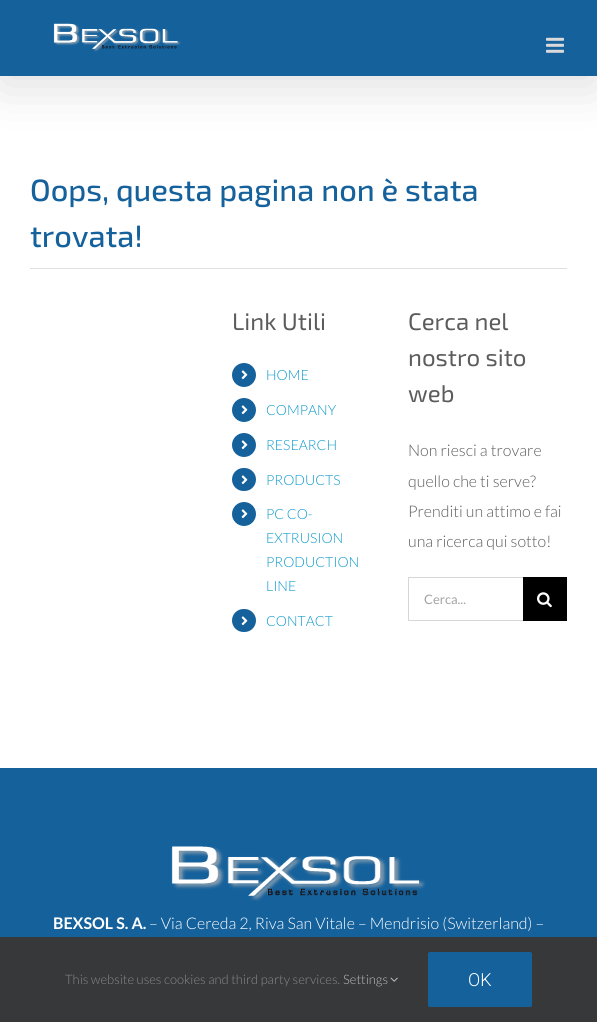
#include <cairo.h>
#include <math.h>
#include <stddef.h>

typedef struct { const char *family; double size; int italic, bold; unsigned color; } style_t;
static cairo_t *ctx;

static void ink(unsigned color) {
    cairo_set_source_rgb(ctx, (color >> 16) / 255.0, (color >> 8 & 255) / 255.0, (color & 255) / 255.0);
}

static void write(double x, double y, const char *s, const style_t *st) {
    cairo_select_font_face(ctx, st->family, st->italic ? CAIRO_FONT_SLANT_ITALIC : CAIRO_FONT_SLANT_NORMAL,
        st->bold ? CAIRO_FONT_WEIGHT_BOLD : CAIRO_FONT_WEIGHT_NORMAL);
    cairo_set_font_size(ctx, st->size);
    ink(st->color);
    cairo_move_to(ctx, x, y);
    cairo_show_text(ctx, s);
}

static void block(double x, double y, double w, double h, unsigned color) {
    ink(color);
    cairo_rectangle(ctx, x, y, w, h);
    cairo_fill(ctx);
}

static void round_path(double x, double y, double w, double h, double r) {
    cairo_new_sub_path(ctx);
    cairo_arc(ctx, x + w - r, y + h - r, r, 0, M_PI / 2);
    cairo_arc(ctx, x + r, y + h - r, r, M_PI / 2, M_PI);
    cairo_arc(ctx, x + r, y + r, r, M_PI, 1.5 * M_PI);
    cairo_arc(ctx, x + w - r, y + r, r, 1.5 * M_PI, 2 * M_PI);
    cairo_close_path(ctx);
}

static void blur_box(double x, double y, double w, double h, double r, double blur, double alpha) {
    cairo_push_group_with_content(ctx, CAIRO_CONTENT_ALPHA);
    cairo_set_operator(ctx, CAIRO_OPERATOR_SOURCE);
    for (int i = 15; i >= -15 && fmin(w, h) + blur * i / 3 > 0; i -= 2) {
        double e = blur * i / 6;
        cairo_set_source_rgba(ctx, 0, 0, 0, alpha * erfc((i - 1) / 8.5) / 2);
        round_path(x - e, y - e, w + 2 * e, h + 2 * e, fmax(0, fmin(r + e + blur * .6, fmin(w, h) / 2 + e)));
        cairo_fill(ctx);
    }
    cairo_pattern_t *soft = cairo_pop_group(ctx);
    cairo_mask(ctx, soft);
    cairo_pattern_destroy(soft);
}

static void paste(const char *path, double x, double y, double w, double h) {
    cairo_surface_t *image = cairo_image_surface_create_from_png(path);
    cairo_save(ctx);
    cairo_set_source_surface(ctx, image, x, y);
    cairo_rectangle(ctx, x, y, w, h);
    cairo_fill(ctx);
    cairo_restore(ctx);
    cairo_surface_destroy(image);
}

static const style_t s1 = {"Exo 2 Medium", 30.75, 0, 0, 0x15619c};
static const style_t s2 = {"Exo 2", 24, 0, 0, 0x5c5c5c};
static const style_t s3 = {"Lato Light", 14, 0, 0, 0x0b99cd};
static const style_t s4 = {"Lato Light", 16, 0, 0, 0x5c5c5c};
static const style_t s5 = {"Lato", 13, 0, 0, 0xa3a3a3};
static const style_t s6 = {"Lato", 16, 0, 1, 0xffffff};
static const style_t s7 = {"Lato Light", 16, 0, 0, 0xffffff};
static const style_t s8 = {"Lato Light", 13, 0, 0, 0x8c8989};
static const style_t s9 = {"Lato Light", 13, 0, 0, 0xbfbfbf};
static const style_t s10 = {"Roboto Light", 18, 0, 0, 0xffffff};

int main(void) {
    cairo_surface_t *surface = cairo_image_surface_create(CAIRO_FORMAT_RGB24, 597, 1022);
    ctx = cairo_create(surface);
    cairo_font_options_t *options = cairo_font_options_create();
    cairo_font_options_set_hint_metrics(options, CAIRO_HINT_METRICS_OFF);
    cairo_font_options_set_hint_style(options, CAIRO_HINT_STYLE_NONE);
    cairo_set_font_options(ctx, options);
    cairo_set_miter_limit(ctx, 4);
    ink(0xffffff);
    cairo_paint(ctx);
    ink(0x000000);
    blur_box(2, 12, 593, 72, 0, 25, 0.14);
    block(0, 0, 597, 76, 0x15619c);
    paste("pic1.png", 53, 23, 128, 29);
    paste("pic2.png", 546, 37, 18, 16);
    block(30, 268, 537, 1, 0xe0dede);
    write(30, 201, "Oops, questa pagina non è stata", &s1);
    write(30, 247, "trovata!", &s1);
    write(232, 330, "Link Utili", &s2);
    ink(0x15619c);
    cairo_new_path(ctx);
    cairo_arc(ctx, 244, 375, 12, 0, 2 * M_PI);
    cairo_fill(ctx);
    paste("pic3.png", 241, 370, 7, 10);
    write(266, 380, "HOME", &s3);
    ink(0x15619c);
    cairo_new_path(ctx);
    cairo_arc(ctx, 244, 410, 12, 0, 2 * M_PI);
    cairo_fill(ctx);
    paste("pic3.png", 241, 405, 7, 10);
    write(266, 415, "COMPANY", &s3);
    ink(0x15619c);
    cairo_new_path(ctx);
    cairo_arc(ctx, 244, 445, 12, 0, 2 * M_PI);
    cairo_fill(ctx);
    paste("pic3.png", 241, 440, 7, 10);
    write(266, 450, "RESEARCH", &s3);
    ink(0x15619c);
    round_path(232, 468, 24, 23, 11.5);
    cairo_fill(ctx);
    paste("pic3.png", 241, 475, 7, 10);
    write(266, 485, "PRODUCTS", &s3);
    ink(0x15619c);
    cairo_new_path(ctx);
    cairo_arc(ctx, 244, 514, 12, 0, 2 * M_PI);
    cairo_fill(ctx);
    paste("pic3.png", 241, 509, 7, 10);
    write(266, 519, "PC CO-", &s3);
    write(266, 543, "EXTRUSION", &s3);
    write(266, 567, "PRODUCTION", &s3);
    write(266, 591, "LINE", &s3);
    ink(0x15619c);
    round_path(232, 609, 24, 23, 11.5);
    cairo_fill(ctx);
    paste("pic3.png", 241, 616, 7, 10);
    write(266, 626, "CONTACT", &s3);
    write(408, 330, "Cerca nel", &s2);
    write(408, 366, "nostro sito", &s2);
    write(408, 402, "web", &s2);
    write(408, 456, "Non riesci a trovare", &s4);
    write(408, 487, "quello che ti serve?", &s4);
    write(408, 517, "Prenditi un attimo e fai", &s4);
    write(408, 547, "una ricerca qui sotto!", &s4);
    block(408, 577, 115, 1, 0xd6d6d6);
    block(408, 620, 115, 1, 0xd6d6d6);
    block(408, 577, 1, 44, 0xd6d6d6);
    write(424, 604, "Cerca...", &s5);
    block(523, 577, 44, 44, 0x000000);
    paste("pic4.png", 537, 592, 15, 16);
    block(0, 768, 597, 169, 0x15619c);
    paste("pic5.png", 171, 846, 255, 55);
    write(53, 929, "BEXSOL S. A.", &s6);
    write(149, 929, "– Via Cereda 2, Riva San Vitale – Mendrisio (Switzerland) –", &s7);
    block(0, 937, 597, 85, 0x363839);
    write(65, 984, "This website uses cookies and third party services.", &s8);
    write(343, 984, "Settings", &s9);
    paste("pic6.png", 390, 977, 8, 5);
    ink(0x15619c);
    round_path(428, 952, 104, 55, 2);
    cairo_fill(ctx);
    write(468, 986, "OK", &s10);
    cairo_surface_write_to_png(surface, "screenshot.png");
    cairo_font_options_destroy(options);
    cairo_destroy(ctx);
    cairo_surface_destroy(surface);
    return 0;
}
